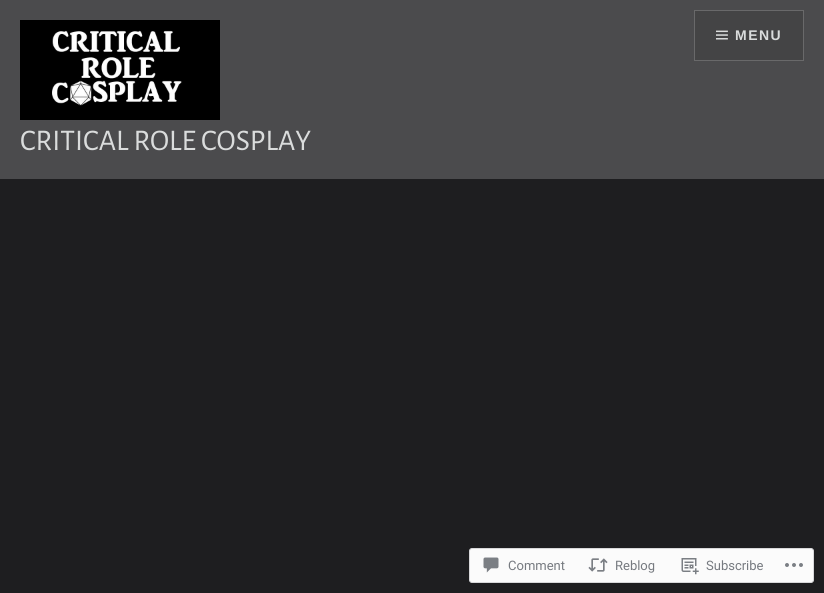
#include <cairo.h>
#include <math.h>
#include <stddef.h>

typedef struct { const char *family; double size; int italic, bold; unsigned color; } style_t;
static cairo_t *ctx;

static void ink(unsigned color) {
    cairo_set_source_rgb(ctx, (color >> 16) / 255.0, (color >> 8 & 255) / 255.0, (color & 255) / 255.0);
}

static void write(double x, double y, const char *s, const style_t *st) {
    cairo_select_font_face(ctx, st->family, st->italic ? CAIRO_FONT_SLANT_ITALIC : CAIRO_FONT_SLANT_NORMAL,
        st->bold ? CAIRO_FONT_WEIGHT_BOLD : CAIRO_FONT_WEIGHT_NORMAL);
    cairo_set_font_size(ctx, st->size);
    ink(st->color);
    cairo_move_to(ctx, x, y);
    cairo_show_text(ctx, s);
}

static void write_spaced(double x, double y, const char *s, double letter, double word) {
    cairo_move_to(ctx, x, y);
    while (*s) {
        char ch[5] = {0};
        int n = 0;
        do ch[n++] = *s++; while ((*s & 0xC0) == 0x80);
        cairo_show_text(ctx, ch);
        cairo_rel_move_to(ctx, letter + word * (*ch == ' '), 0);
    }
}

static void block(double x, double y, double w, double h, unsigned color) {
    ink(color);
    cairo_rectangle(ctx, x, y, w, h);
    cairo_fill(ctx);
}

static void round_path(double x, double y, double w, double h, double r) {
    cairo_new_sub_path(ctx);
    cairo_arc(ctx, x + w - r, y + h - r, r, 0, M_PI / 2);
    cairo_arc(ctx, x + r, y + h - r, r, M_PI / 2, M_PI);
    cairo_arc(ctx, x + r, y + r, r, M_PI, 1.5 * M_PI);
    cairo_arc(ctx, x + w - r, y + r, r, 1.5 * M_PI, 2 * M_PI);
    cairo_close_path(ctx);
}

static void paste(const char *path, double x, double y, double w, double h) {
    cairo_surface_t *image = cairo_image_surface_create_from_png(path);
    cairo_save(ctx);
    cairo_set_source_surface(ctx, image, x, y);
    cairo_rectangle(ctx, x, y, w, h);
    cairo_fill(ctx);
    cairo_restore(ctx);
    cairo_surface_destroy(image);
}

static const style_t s1 = {"Alegreya Sans", 30, 0, 0, 0xdadcdc};
static const style_t s2 = {"Roboto", 13, 0, 0, 0x767a80};

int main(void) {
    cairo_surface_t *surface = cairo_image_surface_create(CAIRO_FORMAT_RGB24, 824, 593);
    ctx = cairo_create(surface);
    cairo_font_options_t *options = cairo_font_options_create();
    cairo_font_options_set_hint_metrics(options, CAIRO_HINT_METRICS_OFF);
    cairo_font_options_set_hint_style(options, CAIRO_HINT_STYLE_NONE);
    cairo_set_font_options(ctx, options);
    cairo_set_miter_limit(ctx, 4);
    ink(0x1e1e20);
    cairo_paint(ctx);
    block(0, 0, 824, 179, 0x4b4b4d);
    ink(0x444445);
    cairo_rectangle(ctx, 694.5, 10.5, 109, 50);
    cairo_fill_preserve(ctx);
    ink(0x69696a);
    cairo_set_line_width(ctx, 1);
    cairo_stroke(ctx);
    paste("pic1.png", 716, 30, 12, 10);
    cairo_select_font_face(ctx, "Arimo", CAIRO_FONT_SLANT_NORMAL, CAIRO_FONT_WEIGHT_BOLD);
    cairo_set_font_size(ctx, 14);
    ink(0xdadcdc);
    write_spaced(735, 40, "MENU", 1.5, 0);
    paste("pic2.png", 20, 20, 200, 100);
    write(20, 150, "CRITICAL ROLE COSPLAY", &s1);
    ink(0xfbfbfb);
    round_path(469.5, 548.5, 344, 34, 2.5);
    cairo_fill_preserve(ctx);
    ink(0xd8d8da);
    cairo_stroke(ctx);
    paste("pic3.png", 483, 557, 16, 16);
    write(508, 570, "Comment", &s2);
    paste("pic4.png", 588, 558, 20, 14);
    write(615, 570, "Reblog", &s2);
    paste("pic5.png", 681, 558, 18, 17);
    write(706, 570, "Subscribe", &s2);
    paste("pic6.png", 785, 563, 18, 4);
    cairo_surface_write_to_png(surface, "screenshot.png");
    cairo_font_options_destroy(options);
    cairo_destroy(ctx);
    cairo_surface_destroy(surface);
    return 0;
}
